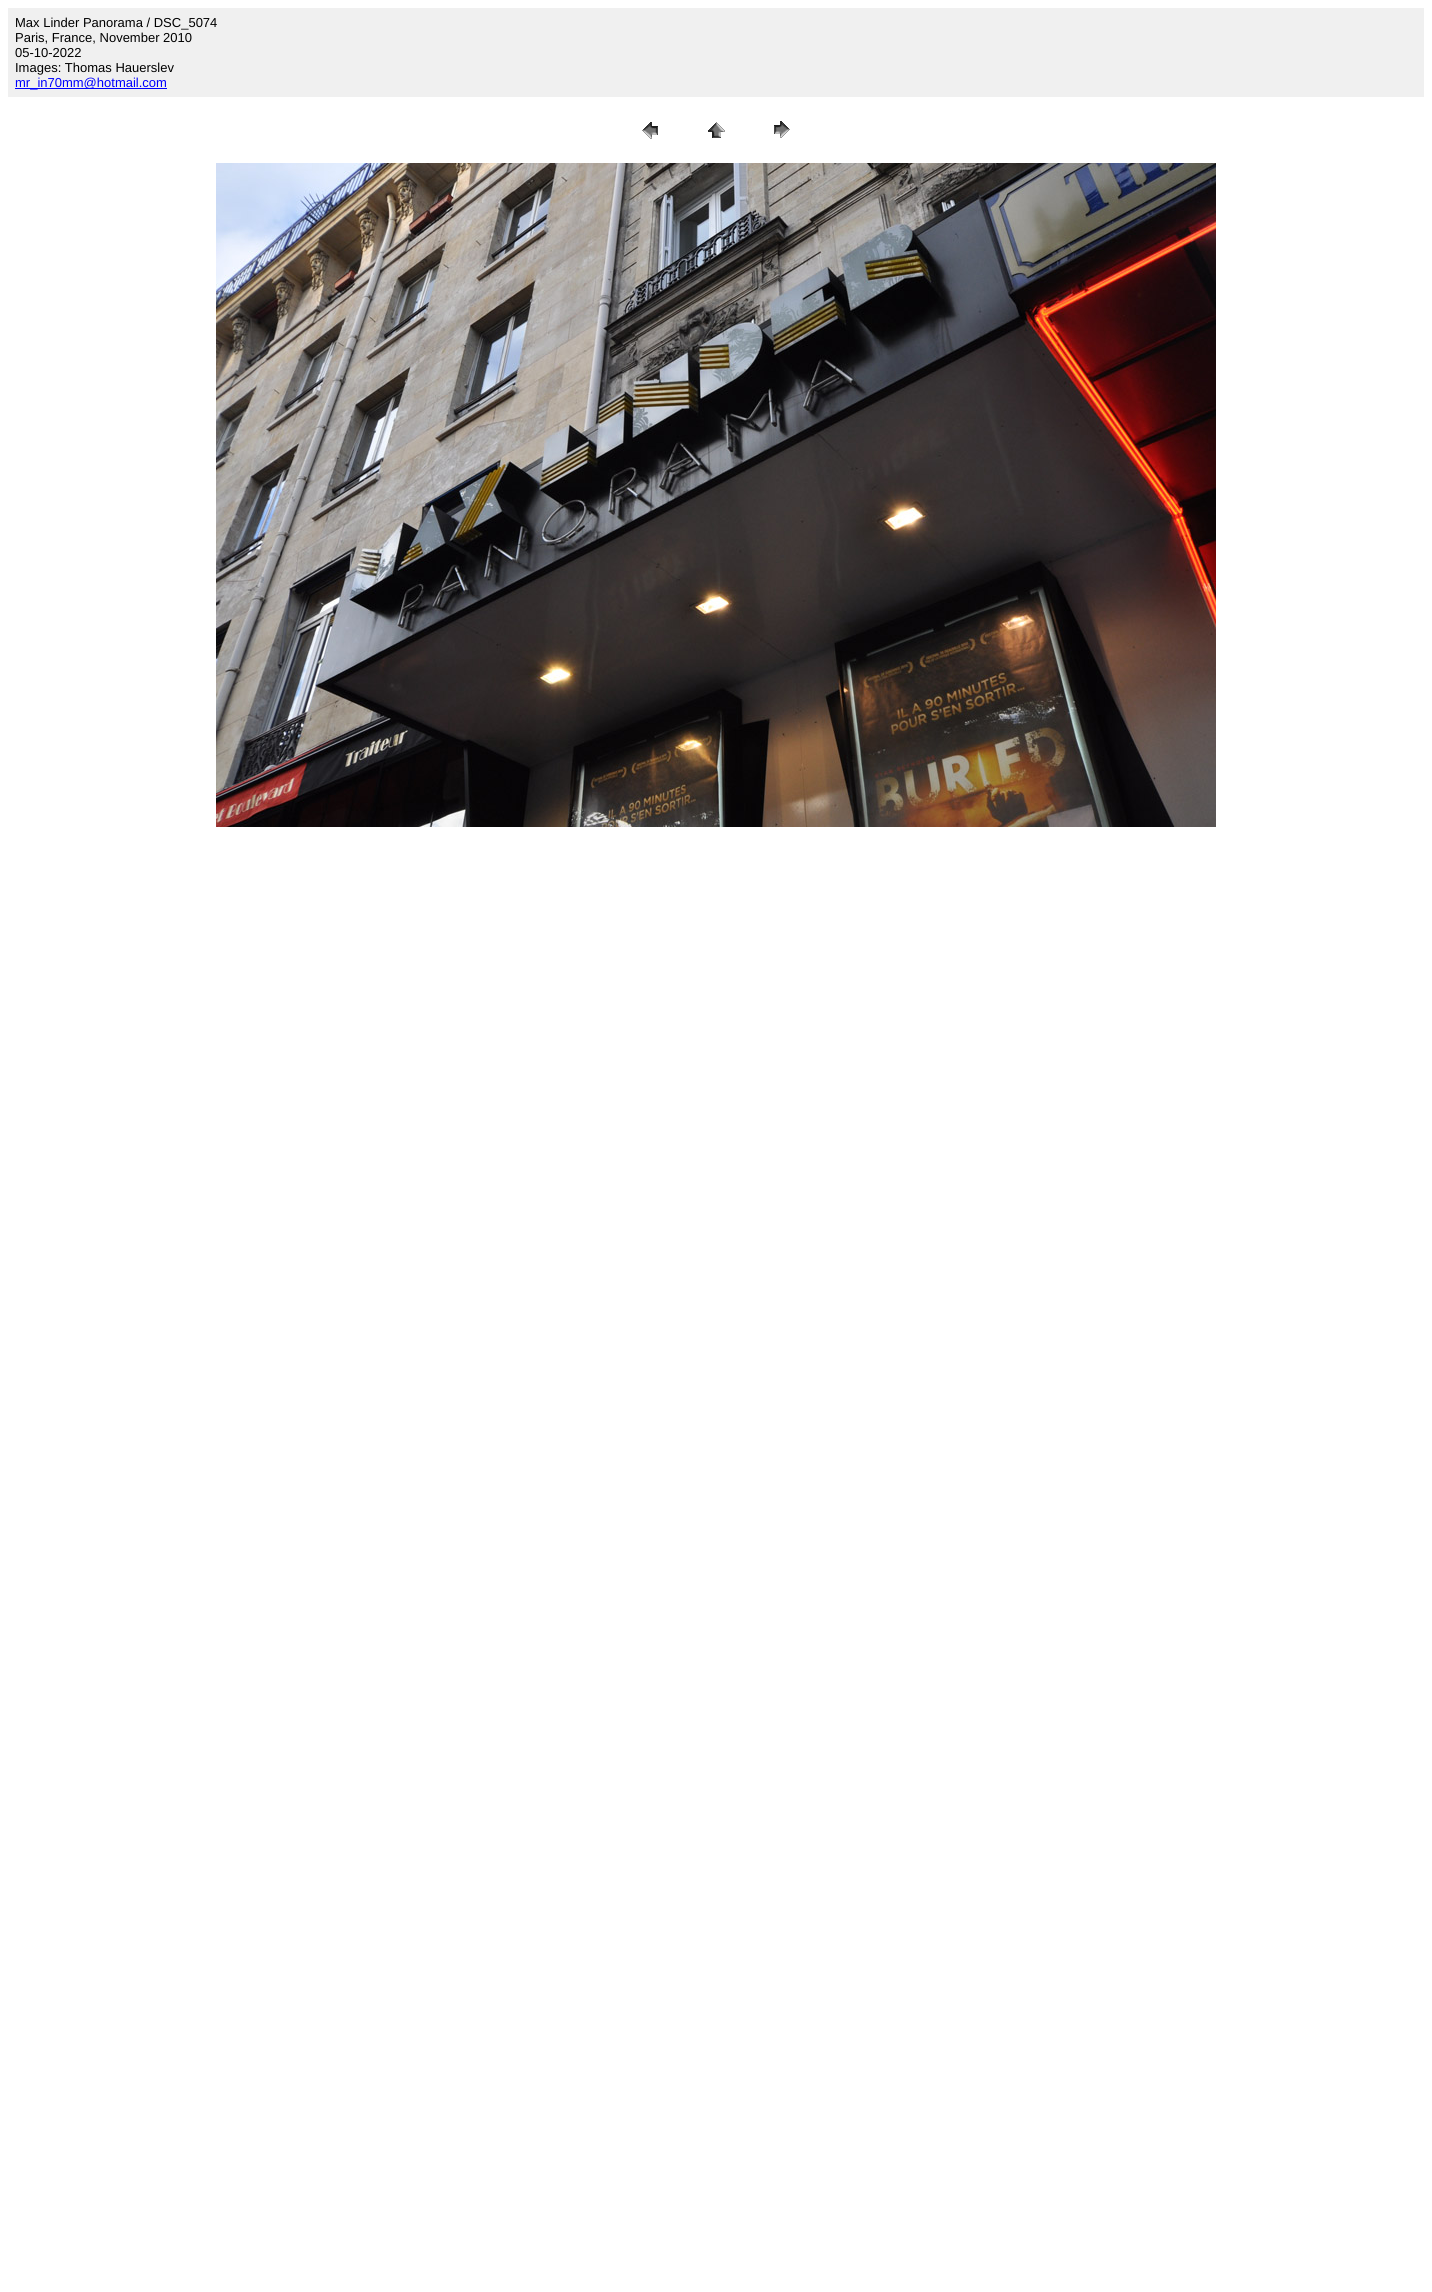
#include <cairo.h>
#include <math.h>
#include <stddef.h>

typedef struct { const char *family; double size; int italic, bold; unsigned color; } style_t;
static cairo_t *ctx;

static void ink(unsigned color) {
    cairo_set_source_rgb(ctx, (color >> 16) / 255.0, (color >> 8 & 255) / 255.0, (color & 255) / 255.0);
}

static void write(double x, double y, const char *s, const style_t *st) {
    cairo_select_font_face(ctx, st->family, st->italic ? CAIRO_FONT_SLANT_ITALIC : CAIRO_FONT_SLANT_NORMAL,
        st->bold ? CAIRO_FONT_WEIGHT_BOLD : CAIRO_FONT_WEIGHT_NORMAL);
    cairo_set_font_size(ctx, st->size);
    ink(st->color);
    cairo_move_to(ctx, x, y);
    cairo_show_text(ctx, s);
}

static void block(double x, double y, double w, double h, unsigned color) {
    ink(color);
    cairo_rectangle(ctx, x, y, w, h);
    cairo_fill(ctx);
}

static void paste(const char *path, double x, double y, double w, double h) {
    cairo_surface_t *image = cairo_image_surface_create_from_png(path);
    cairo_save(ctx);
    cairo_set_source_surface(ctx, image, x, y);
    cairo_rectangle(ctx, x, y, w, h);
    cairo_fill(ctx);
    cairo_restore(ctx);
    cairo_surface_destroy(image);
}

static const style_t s1 = {"Liberation Sans", 13, 0, 0, 0x000000};
static const style_t s2 = {"Liberation Sans", 13, 0, 0, 0x0000ff};

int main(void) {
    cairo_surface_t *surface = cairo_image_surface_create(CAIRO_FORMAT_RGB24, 1432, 2292);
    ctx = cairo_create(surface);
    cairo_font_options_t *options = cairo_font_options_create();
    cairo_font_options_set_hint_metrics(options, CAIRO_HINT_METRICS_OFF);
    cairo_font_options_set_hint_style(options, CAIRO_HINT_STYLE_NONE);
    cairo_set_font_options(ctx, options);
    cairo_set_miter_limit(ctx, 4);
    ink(0xffffff);
    cairo_paint(ctx);
    block(8, 8, 1416, 89, 0xf0f0f0);
    write(15, 27, "Max Linder Panorama / DSC_5074", &s1);
    write(15, 42, "Paris, France, November 2010", &s1);
    write(15, 57, "05-10-2022", &s1);
    write(15, 72, "Images: Thomas Hauerslev", &s1);
    block(15, 88, 152, 1, 0x0000ff);
    write(15, 87, "mr_in70mm@hotmail.com", &s2);
    paste("pic1.png", 642, 122, 16, 17);
    paste("pic2.png", 708, 122, 17, 16);
    paste("pic3.png", 774, 121, 16, 17);
    paste("pic4.png", 216, 163, 1000, 664);
    cairo_surface_write_to_png(surface, "screenshot.png");
    cairo_font_options_destroy(options);
    cairo_destroy(ctx);
    cairo_surface_destroy(surface);
    return 0;
}
